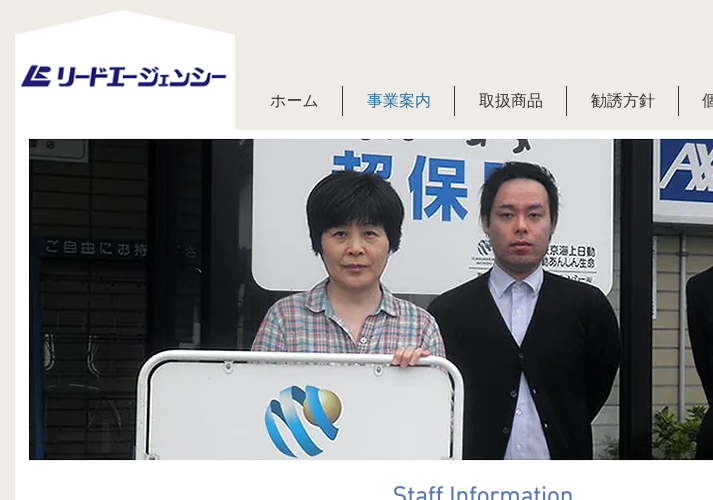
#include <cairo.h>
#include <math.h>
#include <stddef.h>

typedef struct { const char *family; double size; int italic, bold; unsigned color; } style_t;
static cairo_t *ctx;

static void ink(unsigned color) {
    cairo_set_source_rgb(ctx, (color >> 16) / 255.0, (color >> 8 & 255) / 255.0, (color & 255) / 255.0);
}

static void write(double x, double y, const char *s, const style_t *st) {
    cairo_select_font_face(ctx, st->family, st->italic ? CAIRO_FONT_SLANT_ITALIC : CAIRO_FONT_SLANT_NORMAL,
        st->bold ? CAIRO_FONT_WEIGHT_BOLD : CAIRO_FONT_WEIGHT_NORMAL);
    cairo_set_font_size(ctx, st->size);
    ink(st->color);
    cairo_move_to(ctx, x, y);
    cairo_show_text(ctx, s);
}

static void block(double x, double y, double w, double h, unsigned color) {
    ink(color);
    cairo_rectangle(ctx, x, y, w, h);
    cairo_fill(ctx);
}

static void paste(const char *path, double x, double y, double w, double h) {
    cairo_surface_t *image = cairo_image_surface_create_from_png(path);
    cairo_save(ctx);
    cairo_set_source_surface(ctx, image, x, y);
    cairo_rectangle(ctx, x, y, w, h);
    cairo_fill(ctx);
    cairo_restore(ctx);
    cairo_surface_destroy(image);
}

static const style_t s1 = {"WenQuanYi Zen Hei Medium", 16, 0, 0, 0x333333};
static const style_t s2 = {"WenQuanYi Zen Hei Medium", 16, 0, 0, 0x2b6ca3};
static const style_t s3 = {"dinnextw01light", 25, 0, 1, 0x5876b3};

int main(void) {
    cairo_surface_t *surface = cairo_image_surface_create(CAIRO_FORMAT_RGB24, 713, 500);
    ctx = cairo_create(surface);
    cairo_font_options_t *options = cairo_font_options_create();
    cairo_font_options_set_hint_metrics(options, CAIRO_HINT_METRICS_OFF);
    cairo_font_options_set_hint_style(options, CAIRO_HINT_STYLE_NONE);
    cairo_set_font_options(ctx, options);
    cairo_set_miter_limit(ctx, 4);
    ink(0xeeece4);
    cairo_paint(ctx);
    ink(0xffffff);
    cairo_new_path(ctx);
    cairo_move_to(ctx, 15, 35);
    cairo_line_to(ctx, 123, 10);
    cairo_line_to(ctx, 235, 35);
    cairo_line_to(ctx, 235, 130);
    cairo_line_to(ctx, 15, 130);
    cairo_close_path(ctx);
    cairo_fill(ctx);
    paste("pic1.png", 20, 64, 207, 24);
    write(270, 106, "ホーム", &s1);
    block(342, 86, 1, 30, 0x333333);
    write(367, 106, "事業案内", &s2);
    block(454, 86, 1, 30, 0x333333);
    write(479, 106, "取扱商品", &s1);
    block(566, 86, 1, 30, 0x333333);
    write(591, 106, "勧誘方針", &s1);
    block(678, 86, 1, 30, 0x333333);
    write(702, 106, "個", &s1);
    block(15, 130, 698, 370, 0xffffff);
    paste("pic2.png", 23, 138, 690, 323);
    write(392, 504, "Staff Information", &s3);
    cairo_surface_write_to_png(surface, "screenshot.png");
    cairo_font_options_destroy(options);
    cairo_destroy(ctx);
    cairo_surface_destroy(surface);
    return 0;
}
